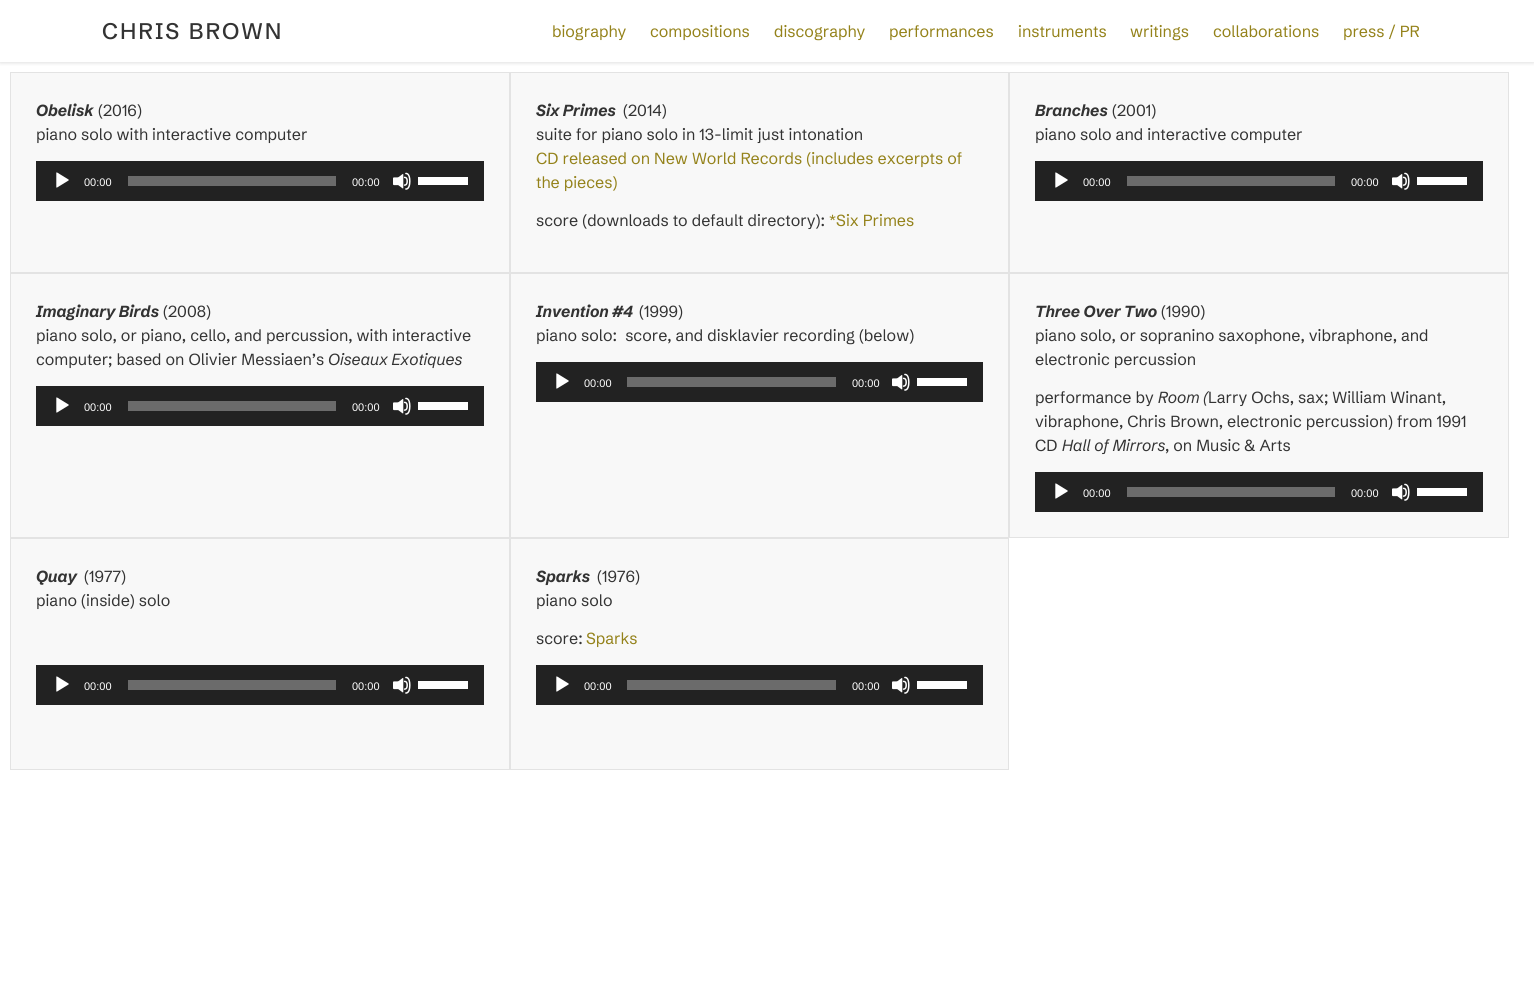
#include <cairo.h>
#include <math.h>
#include <stddef.h>

typedef struct { const char *family; double size; int italic, bold; unsigned color; } style_t;
static cairo_t *ctx;

static void ink(unsigned color) {
    cairo_set_source_rgb(ctx, (color >> 16) / 255.0, (color >> 8 & 255) / 255.0, (color & 255) / 255.0);
}

static void write(double x, double y, const char *s, const style_t *st) {
    cairo_select_font_face(ctx, st->family, st->italic ? CAIRO_FONT_SLANT_ITALIC : CAIRO_FONT_SLANT_NORMAL,
        st->bold ? CAIRO_FONT_WEIGHT_BOLD : CAIRO_FONT_WEIGHT_NORMAL);
    cairo_set_font_size(ctx, st->size);
    ink(st->color);
    cairo_move_to(ctx, x, y);
    cairo_show_text(ctx, s);
}

static void write_spaced(double x, double y, const char *s, double letter, double word) {
    cairo_move_to(ctx, x, y);
    while (*s) {
        char ch[5] = {0};
        int n = 0;
        do ch[n++] = *s++; while ((*s & 0xC0) == 0x80);
        cairo_show_text(ctx, ch);
        cairo_rel_move_to(ctx, letter + word * (*ch == ' '), 0);
    }
}

static void block(double x, double y, double w, double h, unsigned color) {
    ink(color);
    cairo_rectangle(ctx, x, y, w, h);
    cairo_fill(ctx);
}

static void round_path(double x, double y, double w, double h, double r) {
    cairo_new_sub_path(ctx);
    cairo_arc(ctx, x + w - r, y + h - r, r, 0, M_PI / 2);
    cairo_arc(ctx, x + r, y + h - r, r, M_PI / 2, M_PI);
    cairo_arc(ctx, x + r, y + r, r, M_PI, 1.5 * M_PI);
    cairo_arc(ctx, x + w - r, y + r, r, 1.5 * M_PI, 2 * M_PI);
    cairo_close_path(ctx);
}

static void blur_box(double x, double y, double w, double h, double r, double blur, double alpha) {
    cairo_push_group_with_content(ctx, CAIRO_CONTENT_ALPHA);
    cairo_set_operator(ctx, CAIRO_OPERATOR_SOURCE);
    for (int i = 15; i >= -15 && fmin(w, h) + blur * i / 3 > 0; i -= 2) {
        double e = blur * i / 6;
        cairo_set_source_rgba(ctx, 0, 0, 0, alpha * erfc((i - 1) / 8.5) / 2);
        round_path(x - e, y - e, w + 2 * e, h + 2 * e, fmax(0, fmin(r + e + blur * .6, fmin(w, h) / 2 + e)));
        cairo_fill(ctx);
    }
    cairo_pattern_t *soft = cairo_pop_group(ctx);
    cairo_mask(ctx, soft);
    cairo_pattern_destroy(soft);
}

static void paste(const char *path, double x, double y, double w, double h) {
    cairo_surface_t *image = cairo_image_surface_create_from_png(path);
    cairo_save(ctx);
    cairo_set_source_surface(ctx, image, x, y);
    cairo_rectangle(ctx, x, y, w, h);
    cairo_fill(ctx);
    cairo_restore(ctx);
    cairo_surface_destroy(image);
}

static const style_t s1 = {"Schibsted Grotesk", 16, 0, 0, 0x94821a};
static const style_t s2 = {"Schibsted Grotesk", 16, 1, 1, 0x333333};
static const style_t s3 = {"Schibsted Grotesk", 16, 0, 0, 0x333333};
static const style_t s4 = {"Liberation Sans", 11, 0, 0, 0xffffff};
static const style_t s5 = {"Schibsted Grotesk", 16, 1, 0, 0x333333};

int main(void) {
    cairo_surface_t *surface = cairo_image_surface_create(CAIRO_FORMAT_RGB24, 1534, 992);
    ctx = cairo_create(surface);
    cairo_font_options_t *options = cairo_font_options_create();
    cairo_font_options_set_hint_metrics(options, CAIRO_HINT_METRICS_OFF);
    cairo_font_options_set_hint_style(options, CAIRO_HINT_STYLE_NONE);
    cairo_set_font_options(ctx, options);
    cairo_set_miter_limit(ctx, 4);
    ink(0xffffff);
    cairo_paint(ctx);
    cairo_save(ctx);
    cairo_rectangle(ctx, 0, 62, 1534, 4);
    cairo_clip(ctx);
    ink(0x808080);
    blur_box(0, 1, 1534, 62, 0, 2, 0.25);
    cairo_restore(ctx);
    cairo_select_font_face(ctx, "Schibsted Grotesk Medium", CAIRO_FONT_SLANT_NORMAL, CAIRO_FONT_WEIGHT_NORMAL);
    cairo_set_font_size(ctx, 22.5);
    ink(0x333333);
    write_spaced(102, 39, "CHRIS BROWN", 2, 0);
    write(552, 37, "biography", &s1);
    write(650, 37, "compositions", &s1);
    write(774, 37, "discography", &s1);
    write(889, 37, "performances", &s1);
    write(1018, 37, "instruments", &s1);
    write(1130, 37, "writings", &s1);
    write(1213, 37, "collaborations", &s1);
    write(1343, 37, "press / PR", &s1);
    ink(0xf8f8f8);
    cairo_rectangle(ctx, 10.5, 72.5, 499, 200);
    cairo_fill_preserve(ctx);
    ink(0xe3e3e3);
    cairo_set_line_width(ctx, 1);
    cairo_stroke(ctx);
    write(36, 116, "Obelisk", &s2);
    write(98, 116, "(2016)", &s3);
    write(36, 140, "piano solo with interactive computer", &s3);
    block(36, 161, 448, 40, 0x222222);
    paste("pic1.png", 56, 172, 13, 16);
    write(84, 186, "00:00", &s4);
    block(128, 176, 208, 10, 0x6b6b6b);
    write(352, 186, "00:00", &s4);
    paste("pic2.png", 393, 172, 18, 18);
    block(418, 177, 50, 8, 0xffffff);
    ink(0xf8f8f8);
    cairo_rectangle(ctx, 510.5, 72.5, 498, 200);
    cairo_fill_preserve(ctx);
    ink(0xe3e3e3);
    cairo_stroke(ctx);
    write(536, 116, "Six Primes", &s2);
    write(623, 116, "(2014)", &s3);
    write(536, 140, "suite for piano solo in 13-limit just intonation", &s3);
    write(536, 164, "CD released on New World Records (includes excerpts of", &s1);
    write(536, 188, "the pieces)", &s1);
    write(536, 226, "score (downloads to default directory):", &s3);
    write(829, 226, "*Six Primes", &s1);
    ink(0xf8f8f8);
    cairo_rectangle(ctx, 1009.5, 72.5, 499, 200);
    cairo_fill_preserve(ctx);
    ink(0xe3e3e3);
    cairo_stroke(ctx);
    write(1035, 116, "Branches", &s2);
    write(1112, 116, "(2001)", &s3);
    write(1035, 140, "piano solo and interactive computer", &s3);
    block(1035, 161, 448, 40, 0x222222);
    paste("pic1.png", 1055, 172, 13, 16);
    write(1083, 186, "00:00", &s4);
    block(1127, 176, 208, 10, 0x6b6b6b);
    write(1351, 186, "00:00", &s4);
    paste("pic2.png", 1392, 172, 18, 18);
    block(1417, 177, 50, 8, 0xffffff);
    ink(0xf8f8f8);
    cairo_rectangle(ctx, 10.5, 273.5, 499, 264);
    cairo_fill_preserve(ctx);
    ink(0xe3e3e3);
    cairo_stroke(ctx);
    write(36, 317, "Imaginary Birds", &s2);
    write(163, 317, "(2008)", &s3);
    write(36, 341, "piano solo, or piano, cello, and percussion, with interactive", &s3);
    write(36, 365, "computer; based on Olivier Messiaen’s", &s3);
    write(328, 365, "Oiseaux Exotiques", &s5);
    block(36, 386, 448, 40, 0x222222);
    paste("pic1.png", 56, 397, 13, 16);
    write(84, 411, "00:00", &s4);
    block(128, 401, 208, 10, 0x6b6b6b);
    write(352, 411, "00:00", &s4);
    paste("pic2.png", 393, 397, 18, 18);
    block(418, 402, 50, 8, 0xffffff);
    ink(0xf8f8f8);
    cairo_rectangle(ctx, 510.5, 273.5, 498, 264);
    cairo_fill_preserve(ctx);
    ink(0xe3e3e3);
    cairo_stroke(ctx);
    write(536, 317, "Invention #4", &s2);
    write(639, 317, "(1999)", &s3);
    write(536, 341, "piano solo:  score, and disklavier recording (below)", &s3);
    block(536, 362, 447, 40, 0x222222);
    paste("pic1.png", 556, 373, 13, 16);
    write(584, 387, "00:00", &s4);
    block(627, 377, 209, 10, 0x6b6b6b);
    write(852, 387, "00:00", &s4);
    paste("pic2.png", 892, 373, 18, 18);
    block(917, 378, 50, 8, 0xffffff);
    ink(0xf8f8f8);
    cairo_rectangle(ctx, 1009.5, 273.5, 499, 264);
    cairo_fill_preserve(ctx);
    ink(0xe3e3e3);
    cairo_stroke(ctx);
    write(1035, 317, "Three Over Two", &s2);
    write(1161, 317, "(1990)", &s3);
    write(1035, 341, "piano solo, or sopranino saxophone, vibraphone, and", &s3);
    write(1035, 365, "electronic percussion", &s3);
    write(1035, 403, "performance by", &s3);
    write(1158, 403, "Room (", &s5);
    write(1208, 403, "Larry Ochs, sax; William Winant,", &s3);
    write(1035, 427, "vibraphone, Chris Brown, electronic percussion) from 1991", &s3);
    write(1035, 451, "CD", &s3);
    write(1062, 451, "Hall of Mirrors", &s5);
    write(1165, 451, ", on Music & Arts", &s3);
    block(1035, 472, 448, 40, 0x222222);
    paste("pic1.png", 1055, 483, 13, 16);
    write(1083, 497, "00:00", &s4);
    block(1127, 487, 208, 10, 0x6b6b6b);
    write(1351, 497, "00:00", &s4);
    paste("pic2.png", 1392, 483, 18, 18);
    block(1417, 488, 50, 8, 0xffffff);
    ink(0xf8f8f8);
    cairo_rectangle(ctx, 10.5, 538.5, 499, 231);
    cairo_fill_preserve(ctx);
    ink(0xe3e3e3);
    cairo_stroke(ctx);
    write(36, 582, "Quay", &s2);
    write(84, 582, "(1977)", &s3);
    write(36, 606, "piano (inside) solo", &s3);
    block(36, 665, 448, 40, 0x222222);
    paste("pic1.png", 56, 676, 13, 16);
    write(84, 690, "00:00", &s4);
    block(128, 680, 208, 10, 0x6b6b6b);
    write(352, 690, "00:00", &s4);
    paste("pic2.png", 393, 676, 18, 18);
    block(418, 681, 50, 8, 0xffffff);
    ink(0xf8f8f8);
    cairo_rectangle(ctx, 510.5, 538.5, 498, 231);
    cairo_fill_preserve(ctx);
    ink(0xe3e3e3);
    cairo_stroke(ctx);
    write(536, 582, "Sparks", &s2);
    write(597, 582, "(1976)", &s3);
    write(536, 606, "piano solo", &s3);
    write(536, 644, "score:", &s3);
    write(586, 644, "Sparks", &s1);
    block(536, 665, 447, 40, 0x222222);
    paste("pic1.png", 556, 676, 13, 16);
    write(584, 690, "00:00", &s4);
    block(627, 680, 209, 10, 0x6b6b6b);
    write(852, 690, "00:00", &s4);
    paste("pic2.png", 892, 676, 18, 18);
    block(917, 681, 50, 8, 0xffffff);
    cairo_surface_write_to_png(surface, "screenshot.png");
    cairo_font_options_destroy(options);
    cairo_destroy(ctx);
    cairo_surface_destroy(surface);
    return 0;
}
